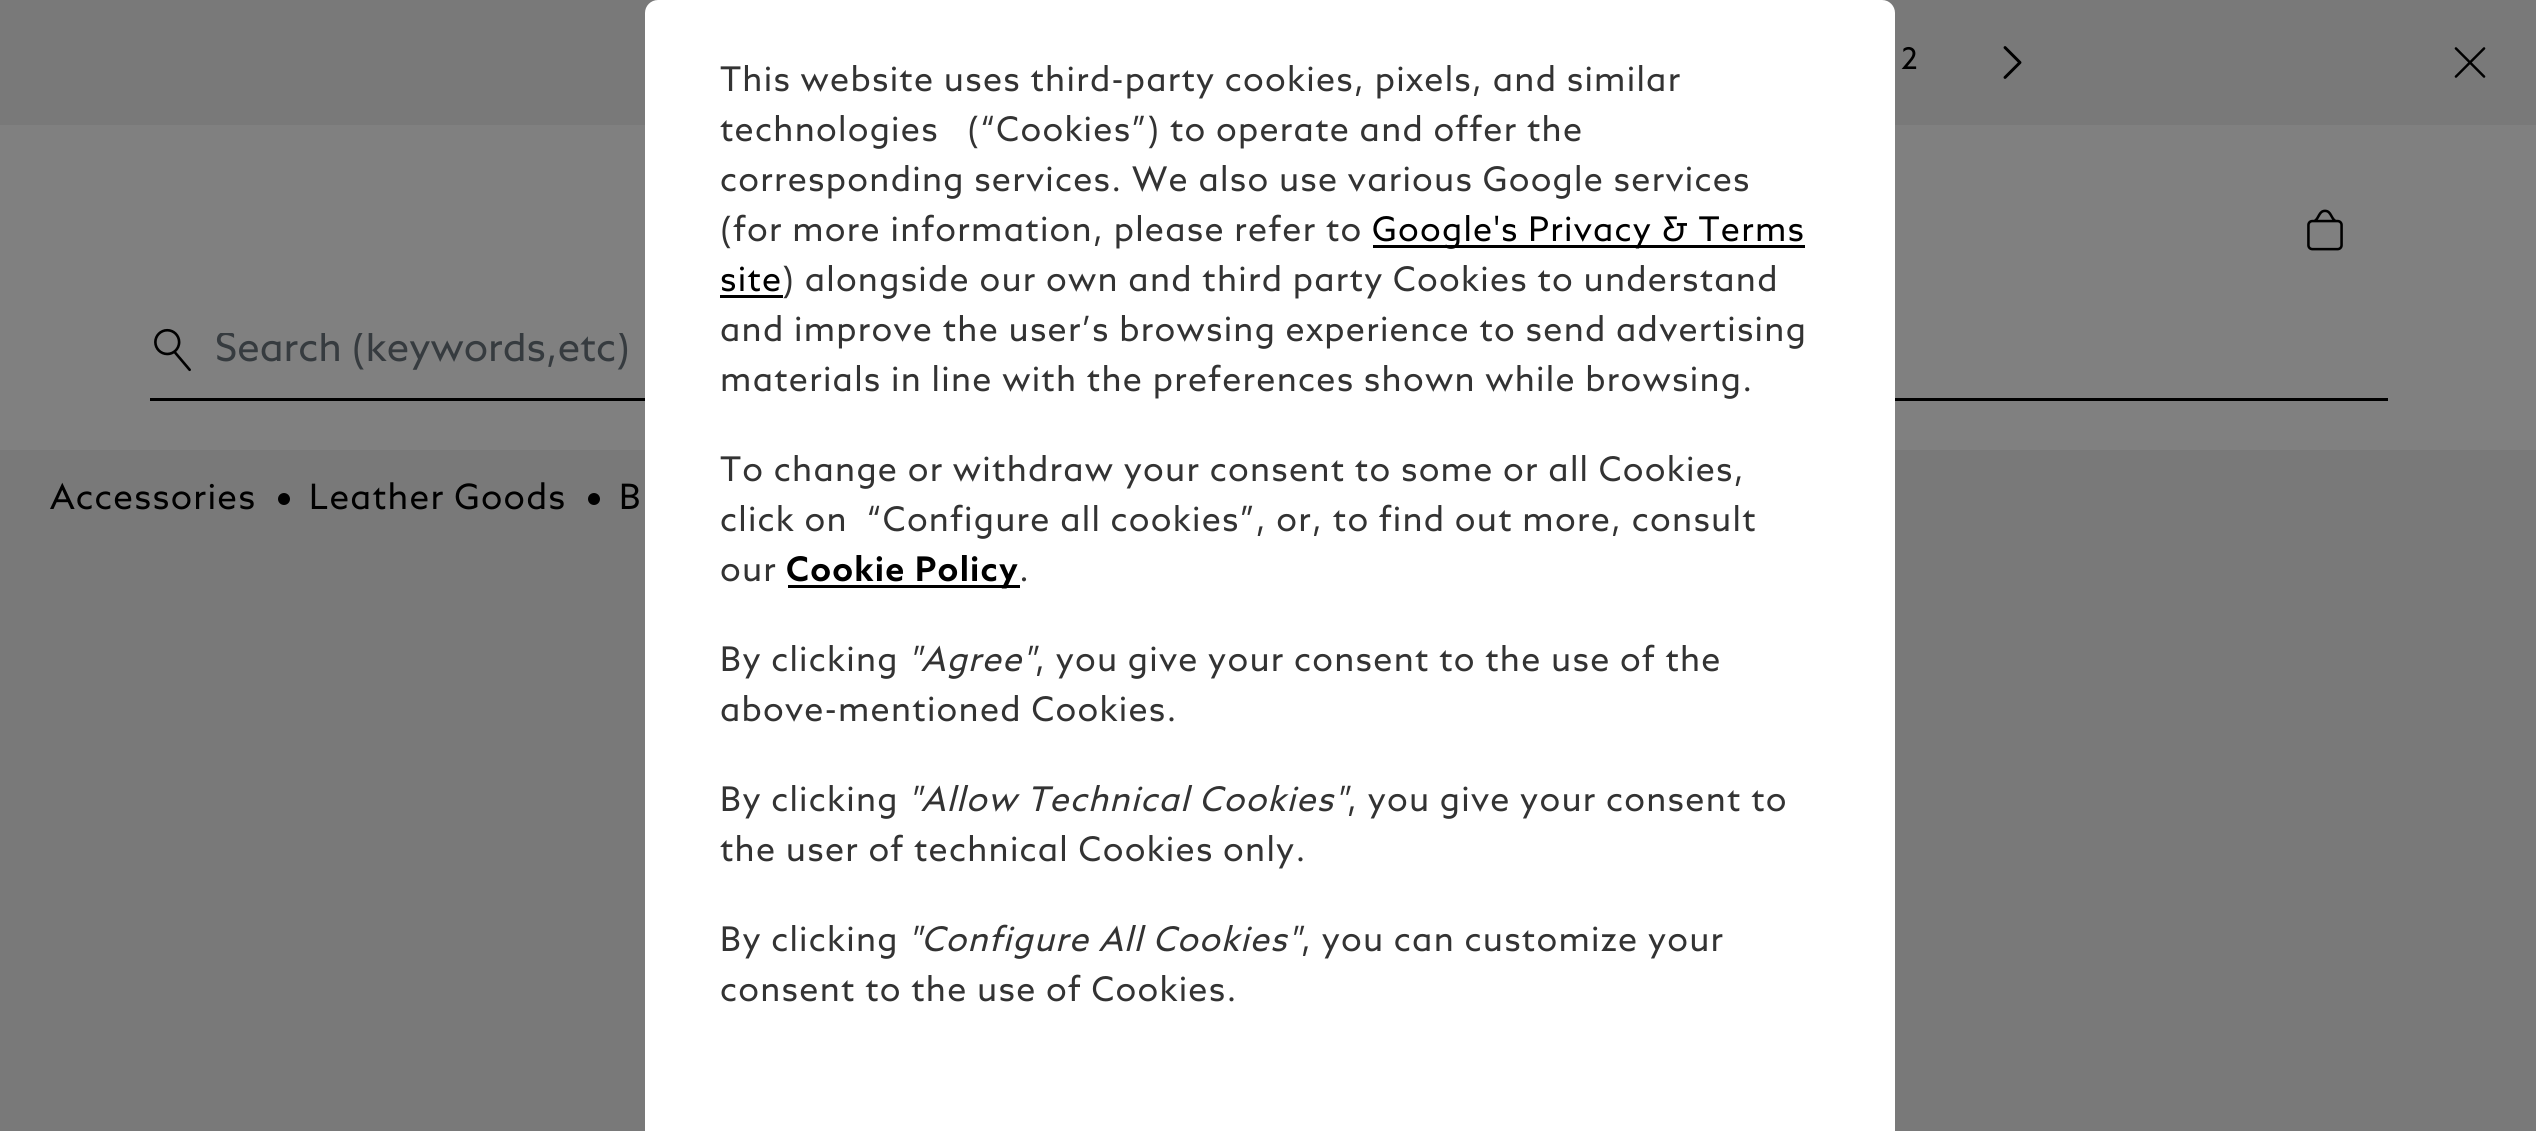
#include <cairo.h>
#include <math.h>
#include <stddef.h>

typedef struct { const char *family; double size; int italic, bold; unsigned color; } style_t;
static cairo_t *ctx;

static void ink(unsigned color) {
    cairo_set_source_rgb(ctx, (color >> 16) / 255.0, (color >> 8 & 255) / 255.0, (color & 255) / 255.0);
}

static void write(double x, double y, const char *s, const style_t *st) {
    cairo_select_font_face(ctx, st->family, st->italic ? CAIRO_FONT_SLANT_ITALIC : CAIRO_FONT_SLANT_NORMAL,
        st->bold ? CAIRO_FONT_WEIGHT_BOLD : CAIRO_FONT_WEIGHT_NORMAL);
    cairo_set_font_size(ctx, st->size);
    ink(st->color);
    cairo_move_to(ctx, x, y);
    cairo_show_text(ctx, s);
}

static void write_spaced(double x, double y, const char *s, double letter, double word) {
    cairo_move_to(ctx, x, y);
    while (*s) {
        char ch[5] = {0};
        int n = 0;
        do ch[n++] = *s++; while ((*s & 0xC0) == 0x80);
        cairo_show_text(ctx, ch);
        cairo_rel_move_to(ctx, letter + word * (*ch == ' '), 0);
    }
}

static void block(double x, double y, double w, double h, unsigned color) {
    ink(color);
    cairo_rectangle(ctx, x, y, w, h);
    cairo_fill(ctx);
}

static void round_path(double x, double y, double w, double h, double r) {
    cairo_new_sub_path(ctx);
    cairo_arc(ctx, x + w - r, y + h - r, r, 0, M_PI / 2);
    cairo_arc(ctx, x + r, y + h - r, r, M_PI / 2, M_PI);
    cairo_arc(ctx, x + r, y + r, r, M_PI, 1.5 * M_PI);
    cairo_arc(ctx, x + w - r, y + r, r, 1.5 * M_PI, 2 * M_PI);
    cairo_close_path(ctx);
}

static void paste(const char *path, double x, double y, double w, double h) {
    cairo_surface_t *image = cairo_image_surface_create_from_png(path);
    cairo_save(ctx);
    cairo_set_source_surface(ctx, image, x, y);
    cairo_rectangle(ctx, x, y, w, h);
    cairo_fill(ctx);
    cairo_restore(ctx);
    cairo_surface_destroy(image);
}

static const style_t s1 = {"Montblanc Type", 40, 0, 0, 0x363b3f};

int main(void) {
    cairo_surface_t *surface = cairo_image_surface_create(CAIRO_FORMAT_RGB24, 2536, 1131);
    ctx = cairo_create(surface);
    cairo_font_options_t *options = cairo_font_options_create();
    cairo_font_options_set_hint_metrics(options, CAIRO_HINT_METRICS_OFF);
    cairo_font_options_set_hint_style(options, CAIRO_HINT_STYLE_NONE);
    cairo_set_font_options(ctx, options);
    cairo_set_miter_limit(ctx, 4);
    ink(0x808080);
    cairo_paint(ctx);
    block(0, 0, 2536, 125, 0x797979);
    cairo_select_font_face(ctx, "Montblanc Type", CAIRO_FONT_SLANT_NORMAL, CAIRO_FONT_WEIGHT_NORMAL);
    cairo_set_font_size(ctx, 30);
    ink(0x000000);
    write_spaced(1901, 69, "2", 2, 0);
    paste("pic1.png", 2003, 46, 19, 33);
    paste("pic2.png", 2454, 47, 32, 31);
    paste("pic3.png", 2307, 209, 36, 42);
    paste("pic4.png", 154, 328, 37, 44);
    block(150, 398, 2238, 3, 0x000000);
    cairo_save(ctx);
    cairo_rectangle(ctx, 215, 333, 1963, 40);
    cairo_clip(ctx);
    write(215, 361, "Search (keywords,etc)", &s1);
    cairo_restore(ctx);
    block(0, 450, 2536, 681, 0x797979);
    cairo_set_font_size(ctx, 35);
    ink(0x000000);
    write_spaced(50, 509, "Accessories", 1.25, 0);
    cairo_new_path(ctx);
    cairo_arc(ctx, 284, 499, 6, 0, 2 * M_PI);
    cairo_fill(ctx);
    write_spaced(309, 509, "Leather Goods", 1.25, 0);
    cairo_new_path(ctx);
    cairo_arc(ctx, 594, 499, 6, 0, 2 * M_PI);
    cairo_fill(ctx);
    write_spaced(619, 509, "B", 1.25, 0);
    ink(0xffffff);
    round_path(645, 0, 1250, 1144, 13);
    cairo_fill(ctx);
    cairo_set_font_size(ctx, 34);
    ink(0x333333);
    write_spaced(720, 91, "This website uses third-party cookies, pixels, and similar", 1.25, 0);
    write_spaced(720, 141, "technologies   (“Cookies”) to operate and offer the", 1.25, 0);
    write_spaced(720, 191, "corresponding services. We also use various Google services", 1.25, 0);
    write_spaced(720, 241, "(for more information, please refer to", 1.25, 0);
    block(1373, 245, 432, 3, 0x000000);
    write_spaced(1372, 241, "Google's Privacy & Terms", 1.25, 0);
    write_spaced(720, 291, "site", 1.25, 0);
    block(720, 295, 63, 3, 0x000000);
    ink(0x333333);
    write_spaced(782, 291, ") alongside our own and third party Cookies to understand", 1.25, 0);
    write_spaced(720, 341, "and improve the user’s browsing experience to send advertising", 1.25, 0);
    write_spaced(720, 391, "materials in line with the preferences shown while browsing.", 1.25, 0);
    write_spaced(720, 481, "To change or withdraw your consent to some or all Cookies,", 1.25, 0);
    write_spaced(720, 531, "click on  “Configure all cookies”, or, to find out more, consult", 1.25, 0);
    write_spaced(720, 581, "our", 1.25, 0);
    block(788, 585, 232, 3, 0x000000);
    cairo_select_font_face(ctx, "Montblanc Type", CAIRO_FONT_SLANT_NORMAL, CAIRO_FONT_WEIGHT_BOLD);
    write_spaced(786, 581, "Cookie Policy", 1.25, 0);
    cairo_select_font_face(ctx, "Montblanc Type", CAIRO_FONT_SLANT_NORMAL, CAIRO_FONT_WEIGHT_NORMAL);
    ink(0x333333);
    write_spaced(1019, 581, ".", 1.25, 0);
    write_spaced(720, 671, "By clicking", 1.25, 0);
    cairo_select_font_face(ctx, "Montblanc Type", CAIRO_FONT_SLANT_ITALIC, CAIRO_FONT_WEIGHT_NORMAL);
    write_spaced(908, 671, "\"Agree\"", 1.25, 0);
    cairo_select_font_face(ctx, "Montblanc Type", CAIRO_FONT_SLANT_NORMAL, CAIRO_FONT_WEIGHT_NORMAL);
    write_spaced(1035, 671, ", you give your consent to the use of the", 1.25, 0);
    write_spaced(720, 721, "above-mentioned Cookies.", 1.25, 0);
    write_spaced(720, 811, "By clicking", 1.25, 0);
    cairo_select_font_face(ctx, "Montblanc Type", CAIRO_FONT_SLANT_ITALIC, CAIRO_FONT_WEIGHT_NORMAL);
    write_spaced(908, 811, "\"Allow Technical Cookies\"", 1.25, 0);
    cairo_select_font_face(ctx, "Montblanc Type", CAIRO_FONT_SLANT_NORMAL, CAIRO_FONT_WEIGHT_NORMAL);
    write_spaced(1347, 811, ", you give your consent to", 1.25, 0);
    write_spaced(720, 861, "the user of technical Cookies only.", 1.25, 0);
    write_spaced(720, 951, "By clicking", 1.25, 0);
    cairo_select_font_face(ctx, "Montblanc Type", CAIRO_FONT_SLANT_ITALIC, CAIRO_FONT_WEIGHT_NORMAL);
    write_spaced(908, 951, "\"Configure All Cookies\"", 1.25, 0);
    cairo_select_font_face(ctx, "Montblanc Type", CAIRO_FONT_SLANT_NORMAL, CAIRO_FONT_WEIGHT_NORMAL);
    write_spaced(1301, 951, ", you can customize your", 1.25, 0);
    write_spaced(720, 1001, "consent to the use of Cookies.", 1.25, 0);
    cairo_surface_write_to_png(surface, "screenshot.png");
    cairo_font_options_destroy(options);
    cairo_destroy(ctx);
    cairo_surface_destroy(surface);
    return 0;
}
